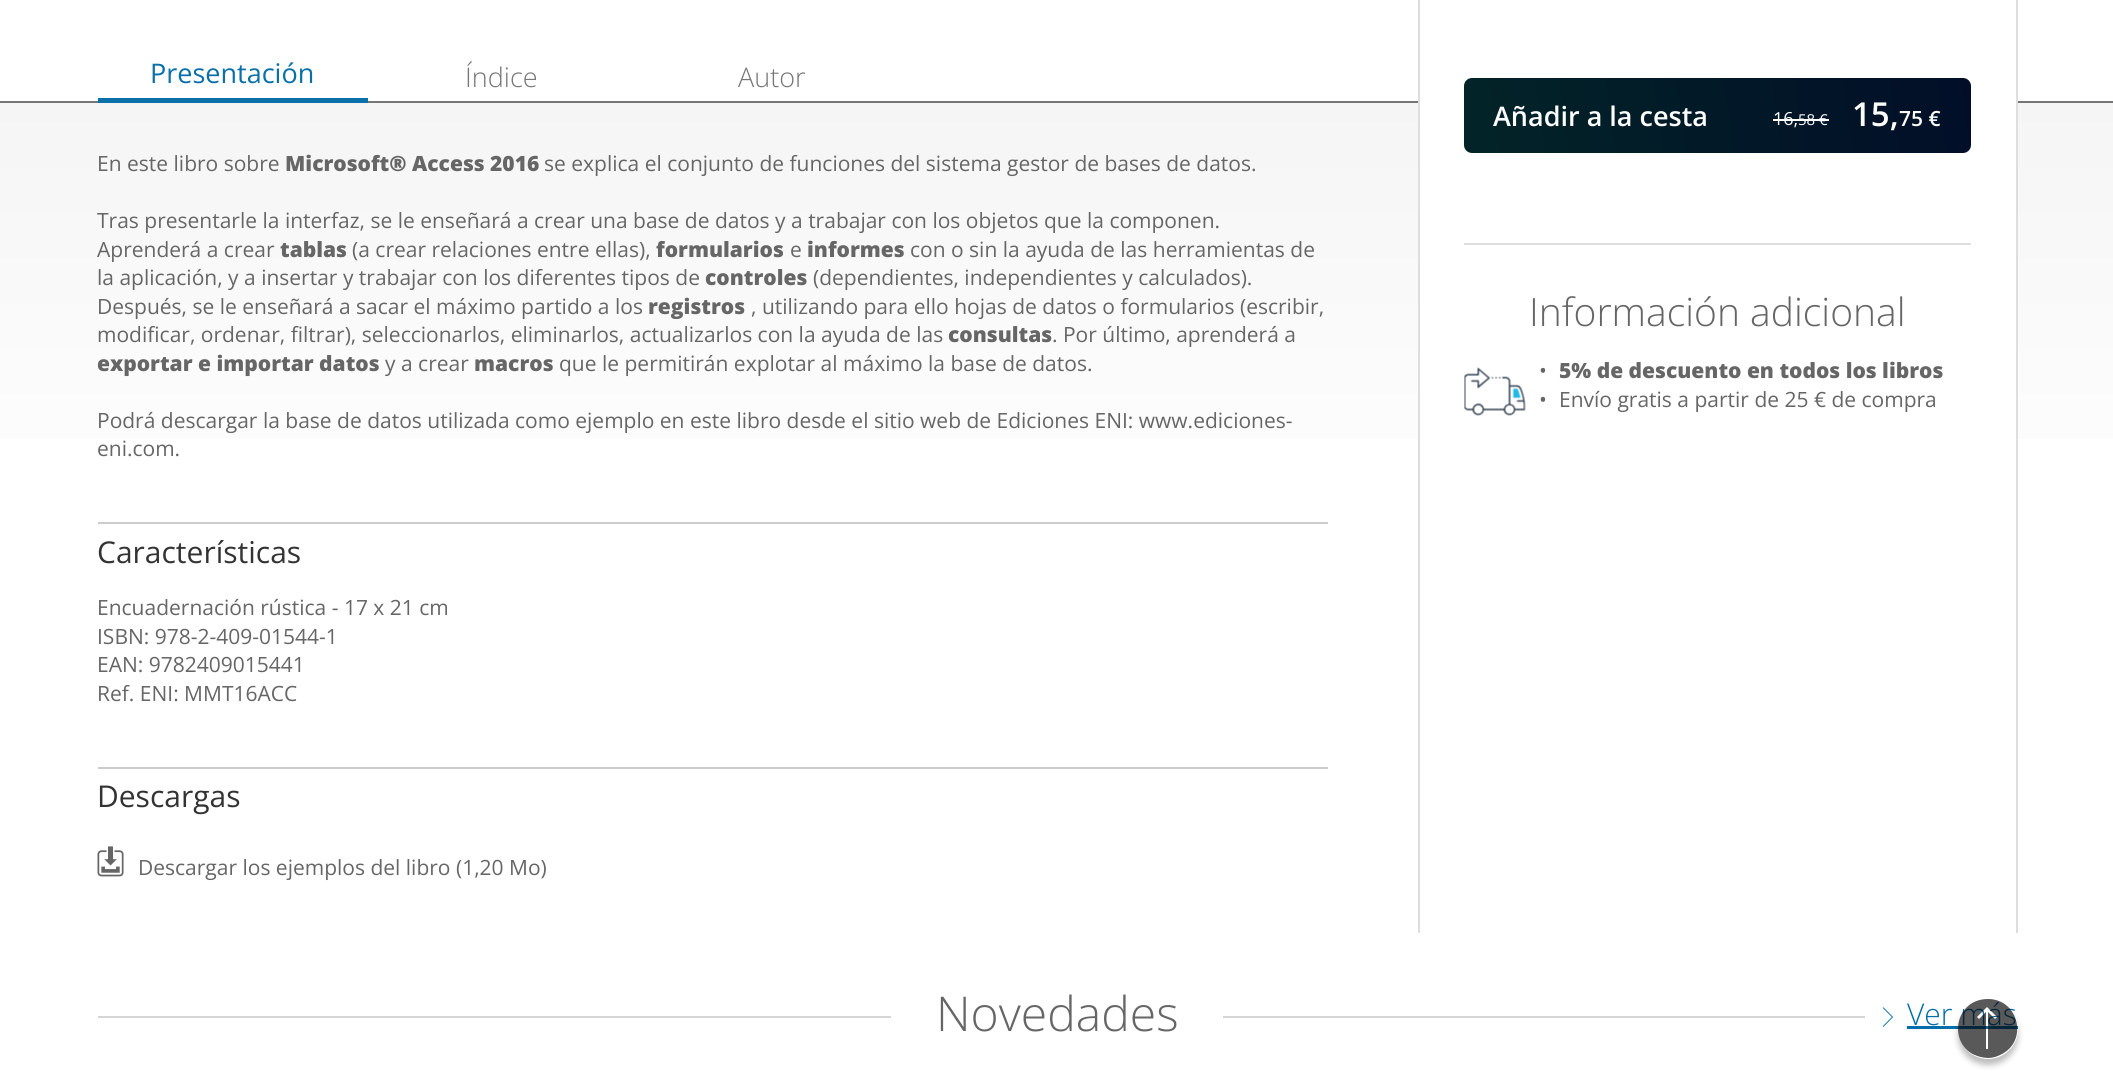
#include <cairo.h>
#include <math.h>
#include <stddef.h>

typedef struct { const char *family; double size; int italic, bold; unsigned color; } style_t;
static cairo_t *ctx;

static void ink(unsigned color) {
    cairo_set_source_rgb(ctx, (color >> 16) / 255.0, (color >> 8 & 255) / 255.0, (color & 255) / 255.0);
}

static void write(double x, double y, const char *s, const style_t *st) {
    cairo_select_font_face(ctx, st->family, st->italic ? CAIRO_FONT_SLANT_ITALIC : CAIRO_FONT_SLANT_NORMAL,
        st->bold ? CAIRO_FONT_WEIGHT_BOLD : CAIRO_FONT_WEIGHT_NORMAL);
    cairo_set_font_size(ctx, st->size);
    ink(st->color);
    cairo_move_to(ctx, x, y);
    cairo_show_text(ctx, s);
}

static void block(double x, double y, double w, double h, unsigned color) {
    ink(color);
    cairo_rectangle(ctx, x, y, w, h);
    cairo_fill(ctx);
}

static void round_path(double x, double y, double w, double h, double r) {
    cairo_new_sub_path(ctx);
    cairo_arc(ctx, x + w - r, y + h - r, r, 0, M_PI / 2);
    cairo_arc(ctx, x + r, y + h - r, r, M_PI / 2, M_PI);
    cairo_arc(ctx, x + r, y + r, r, M_PI, 1.5 * M_PI);
    cairo_arc(ctx, x + w - r, y + r, r, 1.5 * M_PI, 2 * M_PI);
    cairo_close_path(ctx);
}

static void blur_box(double x, double y, double w, double h, double r, double blur, double alpha) {
    cairo_push_group_with_content(ctx, CAIRO_CONTENT_ALPHA);
    cairo_set_operator(ctx, CAIRO_OPERATOR_SOURCE);
    for (int i = 15; i >= -15 && fmin(w, h) + blur * i / 3 > 0; i -= 2) {
        double e = blur * i / 6;
        cairo_set_source_rgba(ctx, 0, 0, 0, alpha * erfc((i - 1) / 8.5) / 2);
        round_path(x - e, y - e, w + 2 * e, h + 2 * e, fmax(0, fmin(r + e + blur * .6, fmin(w, h) / 2 + e)));
        cairo_fill(ctx);
    }
    cairo_pattern_t *soft = cairo_pop_group(ctx);
    cairo_mask(ctx, soft);
    cairo_pattern_destroy(soft);
}

static void paste(const char *path, double x, double y, double w, double h) {
    cairo_surface_t *image = cairo_image_surface_create_from_png(path);
    cairo_save(ctx);
    cairo_set_source_surface(ctx, image, x, y);
    cairo_rectangle(ctx, x, y, w, h);
    cairo_fill(ctx);
    cairo_restore(ctx);
    cairo_surface_destroy(image);
}

static const style_t s1 = {"Open Sans", 27, 0, 0, 0x0970aa};
static const style_t s2 = {"Open Sans Light", 27, 0, 0, 0x767676};
static const style_t s3 = {"Open Sans", 21, 0, 0, 0x666666};
static const style_t s4 = {"Open Sans ExtraBold", 21, 0, 0, 0x666666};
static const style_t s5 = {"Open Sans", 30, 0, 0, 0x333333};
static const style_t s6 = {"Open Sans SemiBold", 27, 0, 0, 0xffffff};
static const style_t s7 = {"Open Sans", 18, 0, 0, 0xffffff};
static const style_t s8 = {"Open Sans", 15, 0, 0, 0xffffff};
static const style_t s9 = {"Open Sans SemiBold", 33, 0, 0, 0xffffff};
static const style_t s10 = {"Open Sans SemiBold", 21, 0, 0, 0xffffff};
static const style_t s11 = {"Open Sans Light", 39, 0, 0, 0x666666};
static const style_t s12 = {"Open Sans Light", 48, 0, 0, 0x666666};
static const style_t s13 = {"Open Sans Light", 30, 0, 0, 0x006fab};

int main(void) {
    cairo_surface_t *surface = cairo_image_surface_create(CAIRO_FORMAT_RGB24, 2113, 1073);
    ctx = cairo_create(surface);
    cairo_font_options_t *options = cairo_font_options_create();
    cairo_font_options_set_hint_metrics(options, CAIRO_HINT_METRICS_OFF);
    cairo_font_options_set_hint_style(options, CAIRO_HINT_STYLE_NONE);
    cairo_set_font_options(ctx, options);
    cairo_set_miter_limit(ctx, 4);
    cairo_pattern_t *gradient;
    ink(0xffffff);
    cairo_paint(ctx);
    block(0, 101, 2113, 2, 0x767676);
    block(98, 98, 270, 5, 0x0970aa);
    write(150, 83, "Presentación", &s1);
    write(465, 87, "Índice", &s2);
    write(738, 87, "Autor", &s2);
    gradient = cairo_pattern_create_linear(1057, 102, 1057, 552);
    cairo_pattern_add_color_stop_rgba(gradient, 0, 0.961, 0.961, 0.961, 1);
    cairo_pattern_add_color_stop_rgba(gradient, 1, 1, 1, 1, 1);
    cairo_set_source(ctx, gradient);
    cairo_pattern_destroy(gradient);
    cairo_rectangle(ctx, 0, 103, 2113, 336);
    cairo_fill(ctx);
    write(97, 171, "En este libro sobre", &s3);
    write(285, 171, "Microsoft® Access 2016", &s4);
    write(544, 171, "se explica el conjunto de funciones del sistema gestor de bases de datos.", &s3);
    write(97, 228, "Tras presentarle la interfaz, se le enseñará a crear una base de datos y a trabajar con los objetos que la componen.", &s3);
    write(97, 257, "Aprenderá a crear", &s3);
    write(280, 257, "tablas", &s4);
    write(352, 257, "(a crear relaciones entre ellas),", &s3);
    write(656, 257, "formularios", &s4);
    write(790, 257, "e", &s3);
    write(807, 257, "informes", &s4);
    write(910, 257, "con o sin la ayuda de las herramientas de", &s3);
    write(97, 285, "la aplicación, y a insertar y trabajar con los diferentes tipos de", &s3);
    write(705, 285, "controles", &s4);
    write(813, 285, "(dependientes, independientes y calculados).", &s3);
    write(97, 314, "Después, se le enseñará a sacar el máximo partido a los", &s3);
    write(648, 314, "registros", &s4);
    write(751, 314, ", utilizando para ello hojas de datos o formularios (escribir,", &s3);
    write(97, 342, "modificar, ordenar, filtrar), seleccionarlos, eliminarlos, actualizarlos con la ayuda de las", &s3);
    write(948, 342, "consultas", &s4);
    write(1052, 342, ". Por último, aprenderá a", &s3);
    write(97, 371, "exportar e importar datos", &s4);
    write(385, 371, "y a crear", &s3);
    write(474, 371, "macros", &s4);
    write(559, 371, "que le permitirán explotar al máximo la base de datos.", &s3);
    write(97, 428, "Podrá descargar la base de datos utilizada como ejemplo en este libro desde el sitio web de Ediciones ENI: www.ediciones-", &s3);
    write(97, 456, "eni.com.", &s3);
    block(98, 522, 1230, 2, 0xcccccc);
    write(97, 563, "Características", &s5);
    write(97, 615, "Encuadernación rústica - 17 x 21 cm", &s3);
    write(97, 644, "ISBN: 978-2-409-01544-1", &s3);
    write(97, 672, "EAN: 9782409015441", &s3);
    write(97, 701, "Ref. ENI: MMT16ACC", &s3);
    block(98, 767, 1230, 2, 0xcccccc);
    write(97, 807, "Descargas", &s5);
    paste("pic1.png", 97, 846, 27, 31);
    write(138, 875, "Descargar los ejemplos del libro (1,20 Mo)", &s3);
    gradient = cairo_pattern_create_linear(1161, -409, 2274, 666);
    cairo_pattern_add_color_stop_rgba(gradient, 0, 0.933, 0.933, 0.933, 1);
    cairo_pattern_add_color_stop_rgba(gradient, 0.1, 1, 1, 1, 1);
    cairo_pattern_add_color_stop_rgba(gradient, 0.8, 1, 1, 1, 1);
    cairo_pattern_add_color_stop_rgba(gradient, 0.99, 1, 1, 1, 0.15);
    cairo_set_source(ctx, gradient);
    cairo_pattern_destroy(gradient);
    cairo_rectangle(ctx, 1420, 101, 596, 338);
    cairo_fill(ctx);
    block(2016, 0, 2, 933, 0xdedede);
    block(1418, 0, 2, 933, 0xdedede);
    gradient = cairo_pattern_create_linear(1470, 197, 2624, 34);
    cairo_pattern_add_color_stop_rgba(gradient, 0, 0.008, 0.141, 0.157, 1);
    cairo_pattern_add_color_stop_rgba(gradient, 0.44, 0.008, 0.055, 0.157, 1);
    cairo_pattern_add_color_stop_rgba(gradient, 0.49, 0.153, 0.294, 0.604, 1);
    cairo_pattern_add_color_stop_rgba(gradient, 0.56, 0.008, 0.055, 0.157, 1);
    cairo_pattern_add_color_stop_rgba(gradient, 1, 0.008, 0.055, 0.157, 1);
    cairo_set_source(ctx, gradient);
    cairo_pattern_destroy(gradient);
    round_path(1464, 78, 507, 75, 8);
    cairo_fill(ctx);
    write(1493, 126, "Añadir a la cesta", &s6);
    write(1773, 125, "16,", &s7);
    block(1773, 119, 26, 2, 0xffffff);
    write(1798, 125, "58 €", &s8);
    block(1799, 119, 30, 2, 0xffffff);
    write(1852, 126, "15,", &s9);
    write(1899, 126, "75 €", &s10);
    block(1464, 243, 507, 2, 0xdedede);
    write(1529, 326, "Información adicional", &s11);
    paste("pic2.png", 1464, 367, 62, 49);
    write(1539, 378, "•", &s3);
    write(1559, 378, "5% de descuento en todos los libros", &s4);
    write(1539, 407, "•", &s3);
    write(1559, 407, "Envío gratis a partir de 25 € de compra", &s3);
    block(98, 1016, 1767, 2, 0xd5d5d5);
    block(891, 1016, 332, 2, 0xffffff);
    write(936, 1031, "Novedades", &s12);
    paste("pic3.png", 1882, 1007, 11, 20);
    write(1907, 1025, "Ver más", &s13);
    block(1907, 1026, 111, 3, 0x006fab);
    cairo_save(ctx);
    cairo_set_fill_rule(ctx, CAIRO_FILL_RULE_EVEN_ODD);
    cairo_new_path(ctx);
    cairo_move_to(ctx, 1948, 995);
    cairo_line_to(ctx, 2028, 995);
    cairo_line_to(ctx, 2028, 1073);
    cairo_line_to(ctx, 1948, 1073);
    cairo_close_path(ctx);
    cairo_move_to(ctx, 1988, 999);
    cairo_curve_to(ctx, 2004.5, 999, 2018, 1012.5, 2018, 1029);
    cairo_curve_to(ctx, 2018, 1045.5, 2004.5, 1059, 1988, 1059);
    cairo_curve_to(ctx, 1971.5, 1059, 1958, 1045.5, 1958, 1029);
    cairo_curve_to(ctx, 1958, 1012.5, 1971.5, 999, 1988, 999);
    cairo_close_path(ctx);
    cairo_clip(ctx);
    ink(0x000000);
    blur_box(1958, 1005, 60, 60, 30, 3, 0.26);
    cairo_restore(ctx);
    cairo_set_source_rgba(ctx, 0, 0, 0, 0.65);
    cairo_set_fill_rule(ctx, CAIRO_FILL_RULE_EVEN_ODD);
    cairo_new_path(ctx);
    cairo_move_to(ctx, 1988, 999);
    cairo_curve_to(ctx, 1950, 999, 1946, 1056, 1988, 1058);
    cairo_curve_to(ctx, 1992, 1058, 1996, 1057, 2000, 1055);
    cairo_curve_to(ctx, 2029, 1042, 2019, 999, 1988, 999);
    cairo_close_path(ctx);
    cairo_move_to(ctx, 1995, 1019);
    cairo_line_to(ctx, 1997, 1017);
    cairo_line_to(ctx, 1987, 1007);
    cairo_line_to(ctx, 1977, 1017);
    cairo_line_to(ctx, 1979, 1019);
    cairo_line_to(ctx, 1986, 1012);
    cairo_line_to(ctx, 1986, 1049);
    cairo_line_to(ctx, 1988, 1049);
    cairo_line_to(ctx, 1988, 1012);
    cairo_close_path(ctx);
    cairo_fill(ctx);
    cairo_surface_write_to_png(surface, "screenshot.png");
    cairo_font_options_destroy(options);
    cairo_destroy(ctx);
    cairo_surface_destroy(surface);
    return 0;
}
